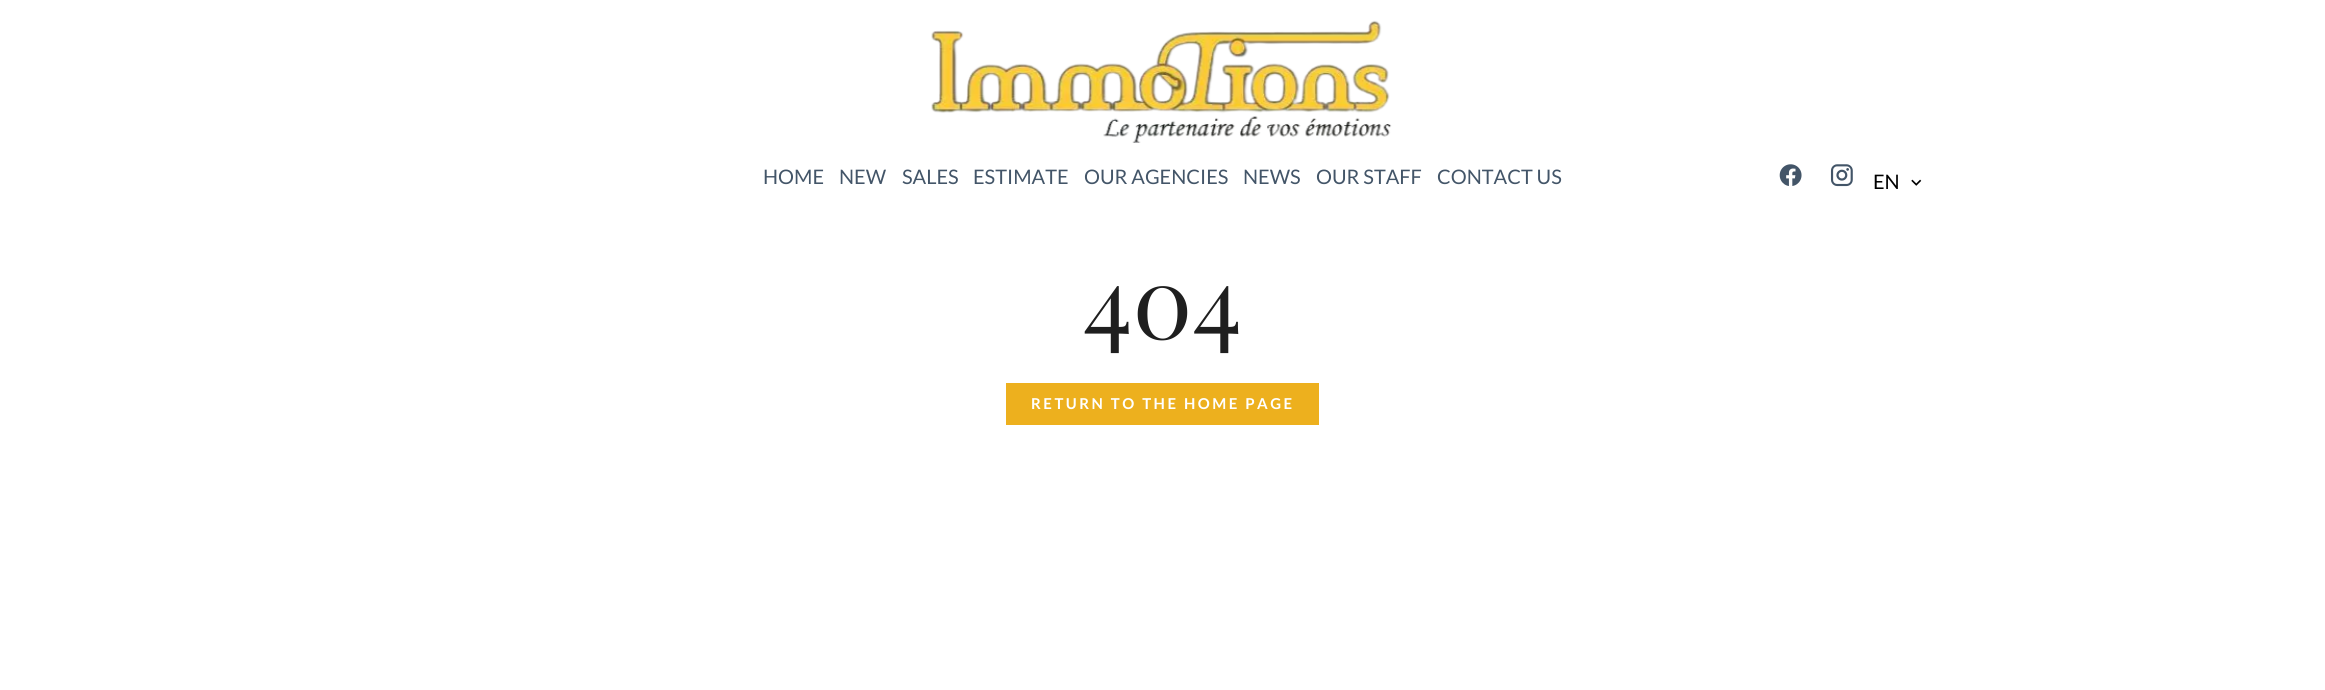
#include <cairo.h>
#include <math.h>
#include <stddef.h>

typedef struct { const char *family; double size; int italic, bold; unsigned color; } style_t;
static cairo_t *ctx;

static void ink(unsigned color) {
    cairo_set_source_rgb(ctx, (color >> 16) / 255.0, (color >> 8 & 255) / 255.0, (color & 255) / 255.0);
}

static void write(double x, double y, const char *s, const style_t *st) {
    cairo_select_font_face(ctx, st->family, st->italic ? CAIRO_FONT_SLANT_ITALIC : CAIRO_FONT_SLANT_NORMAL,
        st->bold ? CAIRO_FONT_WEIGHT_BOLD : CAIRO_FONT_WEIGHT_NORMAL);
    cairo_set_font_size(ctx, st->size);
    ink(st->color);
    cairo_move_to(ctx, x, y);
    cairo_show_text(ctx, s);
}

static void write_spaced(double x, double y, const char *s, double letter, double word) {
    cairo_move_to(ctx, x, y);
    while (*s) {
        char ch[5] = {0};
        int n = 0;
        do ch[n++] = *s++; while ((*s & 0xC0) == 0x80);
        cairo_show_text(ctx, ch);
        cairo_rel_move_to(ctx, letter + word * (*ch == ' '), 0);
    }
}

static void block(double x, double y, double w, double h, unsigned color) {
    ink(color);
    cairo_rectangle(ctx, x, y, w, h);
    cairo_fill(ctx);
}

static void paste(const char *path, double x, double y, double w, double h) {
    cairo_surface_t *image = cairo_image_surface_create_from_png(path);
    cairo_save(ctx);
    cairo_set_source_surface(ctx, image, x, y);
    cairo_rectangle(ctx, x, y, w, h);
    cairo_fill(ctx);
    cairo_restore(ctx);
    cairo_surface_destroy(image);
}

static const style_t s1 = {"Lato", 20, 0, 0, 0x435568};
static const style_t s2 = {"Lato", 20, 0, 0, 0x000000};
static const style_t s3 = {"Playfair Display", 100, 0, 0, 0x1f1f1f};

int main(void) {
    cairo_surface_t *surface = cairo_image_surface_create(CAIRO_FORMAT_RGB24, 2325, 690);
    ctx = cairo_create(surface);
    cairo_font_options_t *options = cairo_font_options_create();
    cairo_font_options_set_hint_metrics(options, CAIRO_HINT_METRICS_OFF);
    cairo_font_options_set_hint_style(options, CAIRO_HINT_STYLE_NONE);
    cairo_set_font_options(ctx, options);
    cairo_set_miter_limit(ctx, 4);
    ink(0xffffff);
    cairo_paint(ctx);
    paste("pic1.png", 931, 20, 461, 123);
    write(763, 184, "HOME", &s1);
    write(839, 184, "NEW", &s1);
    write(902, 184, "SALES", &s1);
    write(973, 184, "ESTIMATE", &s1);
    write(1084, 184, "OUR AGENCIES", &s1);
    write(1243, 184, "NEWS", &s1);
    write(1316, 184, "OUR STAFF", &s1);
    write(1437, 184, "CONTACT US", &s1);
    paste("pic2.png", 1779, 164, 23, 22);
    paste("pic3.png", 1830, 164, 23, 23);
    write(1873, 189, "EN", &s2);
    paste("pic4.png", 1911, 179, 11, 7);
    write(1083, 339, "404", &s3);
    block(1006, 383, 313, 42, 0xedb01e);
    cairo_select_font_face(ctx, "Lato", CAIRO_FONT_SLANT_NORMAL, CAIRO_FONT_WEIGHT_BOLD);
    cairo_set_font_size(ctx, 15);
    ink(0xffffff);
    write_spaced(1031, 409, "RETURN TO THE HOME PAGE", 2.5, 0);
    cairo_surface_write_to_png(surface, "screenshot.png");
    cairo_font_options_destroy(options);
    cairo_destroy(ctx);
    cairo_surface_destroy(surface);
    return 0;
}
